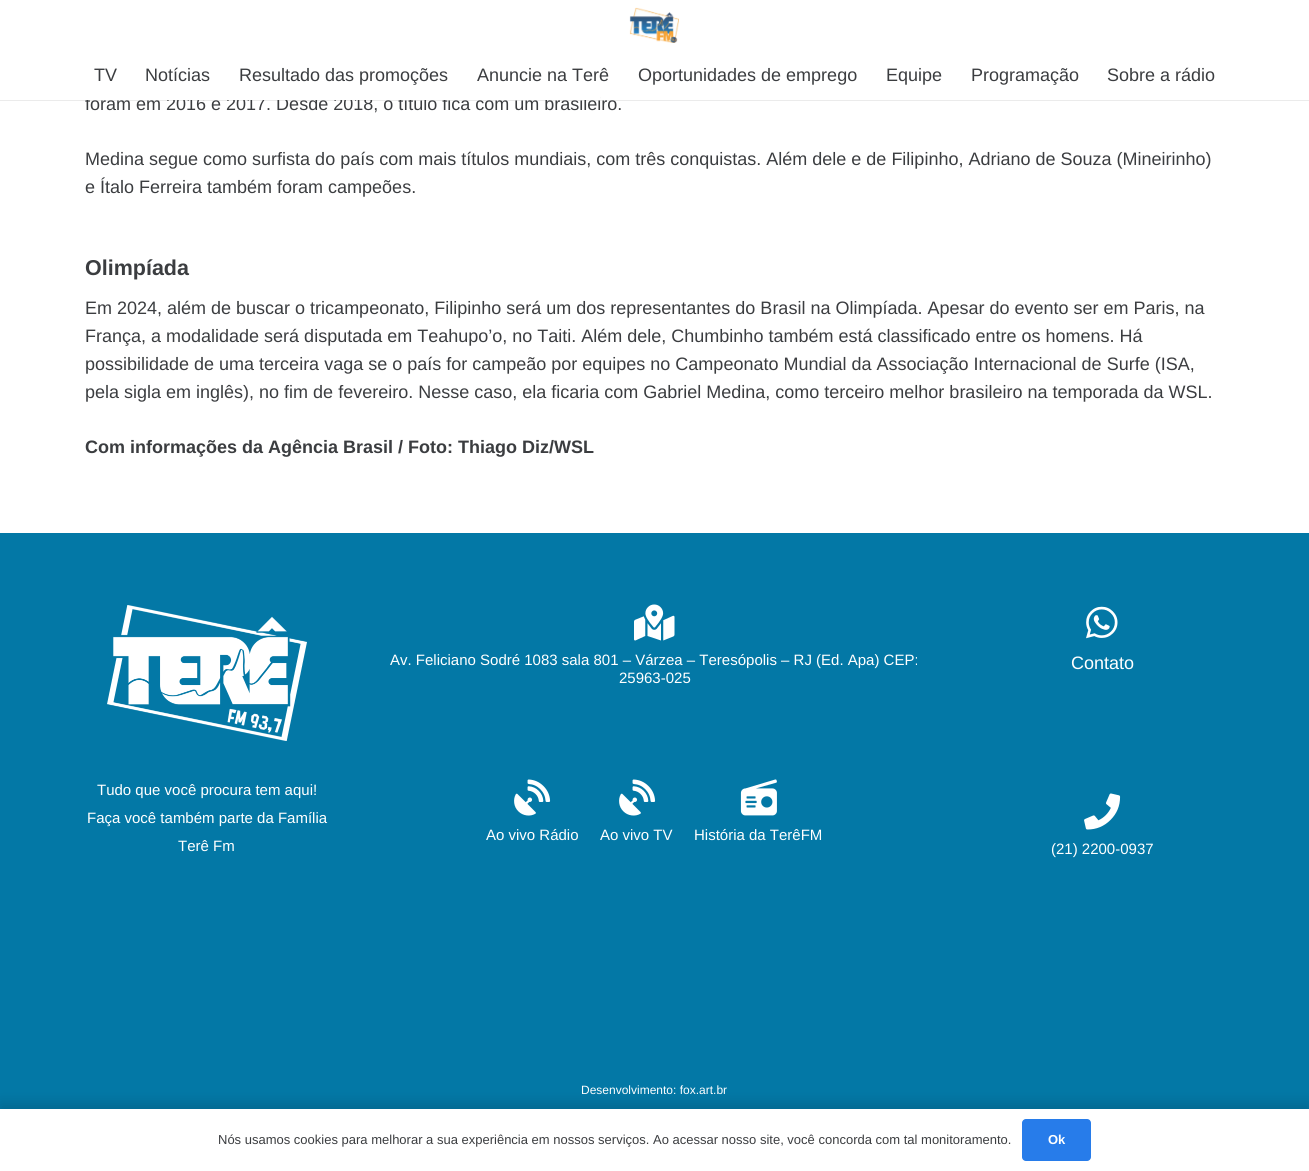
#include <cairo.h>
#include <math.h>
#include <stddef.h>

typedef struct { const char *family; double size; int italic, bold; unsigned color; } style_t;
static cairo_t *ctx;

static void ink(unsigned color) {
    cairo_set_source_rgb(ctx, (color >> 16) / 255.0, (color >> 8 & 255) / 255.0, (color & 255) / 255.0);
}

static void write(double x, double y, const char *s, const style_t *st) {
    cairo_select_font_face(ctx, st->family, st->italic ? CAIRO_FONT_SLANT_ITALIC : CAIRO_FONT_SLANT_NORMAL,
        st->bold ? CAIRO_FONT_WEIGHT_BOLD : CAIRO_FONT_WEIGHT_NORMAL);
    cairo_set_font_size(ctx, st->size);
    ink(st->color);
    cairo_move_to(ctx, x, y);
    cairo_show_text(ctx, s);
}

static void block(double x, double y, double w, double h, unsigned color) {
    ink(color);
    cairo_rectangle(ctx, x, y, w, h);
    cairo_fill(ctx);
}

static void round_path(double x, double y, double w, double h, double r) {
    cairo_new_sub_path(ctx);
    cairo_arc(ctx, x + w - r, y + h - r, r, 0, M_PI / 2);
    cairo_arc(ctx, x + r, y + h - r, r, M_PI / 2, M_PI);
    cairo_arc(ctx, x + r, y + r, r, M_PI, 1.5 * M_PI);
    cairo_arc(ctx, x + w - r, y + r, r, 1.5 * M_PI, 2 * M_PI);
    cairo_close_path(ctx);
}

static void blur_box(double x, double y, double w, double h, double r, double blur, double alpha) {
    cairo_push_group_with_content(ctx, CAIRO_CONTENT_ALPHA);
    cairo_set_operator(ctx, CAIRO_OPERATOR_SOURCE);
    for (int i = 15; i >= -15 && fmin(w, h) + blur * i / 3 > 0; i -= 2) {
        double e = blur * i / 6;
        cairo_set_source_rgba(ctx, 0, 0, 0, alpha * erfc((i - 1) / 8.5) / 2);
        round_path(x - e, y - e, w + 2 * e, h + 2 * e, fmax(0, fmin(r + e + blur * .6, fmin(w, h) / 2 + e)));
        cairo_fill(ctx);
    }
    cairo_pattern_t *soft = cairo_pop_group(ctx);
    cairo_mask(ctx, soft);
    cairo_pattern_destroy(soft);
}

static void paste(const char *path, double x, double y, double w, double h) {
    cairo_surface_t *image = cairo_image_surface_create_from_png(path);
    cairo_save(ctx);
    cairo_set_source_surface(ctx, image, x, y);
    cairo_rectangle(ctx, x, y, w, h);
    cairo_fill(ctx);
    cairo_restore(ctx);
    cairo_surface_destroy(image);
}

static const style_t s1 = {"Liberation Sans", 18, 0, 0, 0x3b3d40};
static const style_t s2 = {"Liberation Sans", 21.5, 0, 1, 0x3b3d40};
static const style_t s3 = {"Liberation Sans", 18, 0, 1, 0x3b3d40};
static const style_t s4 = {"Liberation Sans", 15, 0, 0, 0xffffff};
static const style_t s5 = {"Liberation Sans", 18, 0, 0, 0xffffff};
static const style_t s6 = {"Liberation Sans", 12, 0, 0, 0xffffff};
static const style_t s7 = {"Liberation Sans", 13, 0, 0, 0x3b3d40};
static const style_t s8 = {"Liberation Sans", 13, 0, 1, 0xffffff};

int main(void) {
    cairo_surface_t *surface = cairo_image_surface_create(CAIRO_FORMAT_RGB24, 1309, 1171);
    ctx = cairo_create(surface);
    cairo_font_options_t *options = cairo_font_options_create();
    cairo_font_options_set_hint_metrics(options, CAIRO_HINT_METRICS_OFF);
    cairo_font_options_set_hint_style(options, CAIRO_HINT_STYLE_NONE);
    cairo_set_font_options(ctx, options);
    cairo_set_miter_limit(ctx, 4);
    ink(0xffffff);
    cairo_paint(ctx);
    paste("pic1.png", 629, 7, 50, 36);
    cairo_set_source_rgba(ctx, 0, 0, 0, 0.08);
    cairo_rectangle(ctx, 0, 100, 1309, 1);
    cairo_fill(ctx);
    write(85, 110, "foram em 2016 e 2017. Desde 2018, o título fica com um brasileiro.", &s1);
    block(86, 96, 514, 4, 0xffffff);
    write(94, 81, "TV", &s1);
    write(145, 81, "Notícias", &s1);
    write(239, 81, "Resultado das promoções", &s1);
    write(477, 81, "Anuncie na Terê", &s1);
    write(638, 81, "Oportunidades de emprego", &s1);
    write(886, 81, "Equipe", &s1);
    write(971, 81, "Programação", &s1);
    write(1107, 81, "Sobre a rádio", &s1);
    write(85, 165, "Medina segue como surfista do país com mais títulos mundiais, com três conquistas. Além dele e de Filipinho, Adriano de Souza (Mineirinho)", &s1);
    write(85, 193, "e Ítalo Ferreira também foram campeões.", &s1);
    write(85, 275, "Olimpíada", &s2);
    write(85, 314, "Em 2024, além de buscar o tricampeonato, Filipinho será um dos representantes do Brasil na Olimpíada. Apesar do evento ser em Paris, na", &s1);
    write(85, 342, "França, a modalidade será disputada em Teahupo’o, no Taiti. Além dele, Chumbinho também está classificado entre os homens. Há", &s1);
    write(85, 370, "possibilidade de uma terceira vaga se o país for campeão por equipes no Campeonato Mundial da Associação Internacional de Surfe (ISA,", &s1);
    write(85, 398, "pela sigla em inglês), no fim de fevereiro. Nesse caso, ela ficaria com Gabriel Medina, como terceiro melhor brasileiro na temporada da WSL.", &s1);
    write(85, 453, "Com informações da Agência Brasil / Foto: Thiago Diz/WSL", &s3);
    block(0, 533, 1309, 576, 0x0378a6);
    paste("pic2.png", 107, 605, 200, 136);
    write(97, 795, "Tudo que você procura tem aqui!", &s4);
    write(87, 823, "Faça você também parte da Família", &s4);
    write(178, 851, "Terê Fm", &s4);
    paste("pic3.png", 634, 604, 41, 37);
    write(390, 665, "Av. Feliciano Sodré 1083 sala 801 – Várzea – Teresópolis – RJ (Ed. Apa) CEP:", &s4);
    write(619, 683, "25963-025", &s4);
    paste("pic4.png", 514, 779, 37, 37);
    write(486, 840, "Ao vivo Rádio", &s4);
    paste("pic4.png", 619, 779, 37, 37);
    write(600, 840, "Ao vivo TV", &s4);
    paste("pic5.png", 740, 779, 37, 37);
    write(694, 840, "História da TerêFM", &s4);
    paste("pic6.png", 1086, 606, 32, 33);
    write(1071, 669, "Contato", &s5);
    paste("pic7.png", 1084, 793, 37, 37);
    write(1051, 854, "(21) 2200-0937", &s4);
    write(581, 1094, "Desenvolvimento: fox.art.br", &s6);
    ink(0x000000);
    blur_box(0, 1104, 1309, 62, 0, 7.5, 0.15);
    block(0, 1109, 1309, 62, 0xffffff);
    write(218, 1144, "Nós usamos cookies para melhorar a sua experiência em nossos serviços. Ao acessar nosso site, você concorda com tal monitoramento.", &s7);
    ink(0x277cea);
    round_path(1022, 1119, 69, 42, 4);
    cairo_fill(ctx);
    write(1048, 1144, "Ok", &s8);
    cairo_surface_write_to_png(surface, "screenshot.png");
    cairo_font_options_destroy(options);
    cairo_destroy(ctx);
    cairo_surface_destroy(surface);
    return 0;
}
